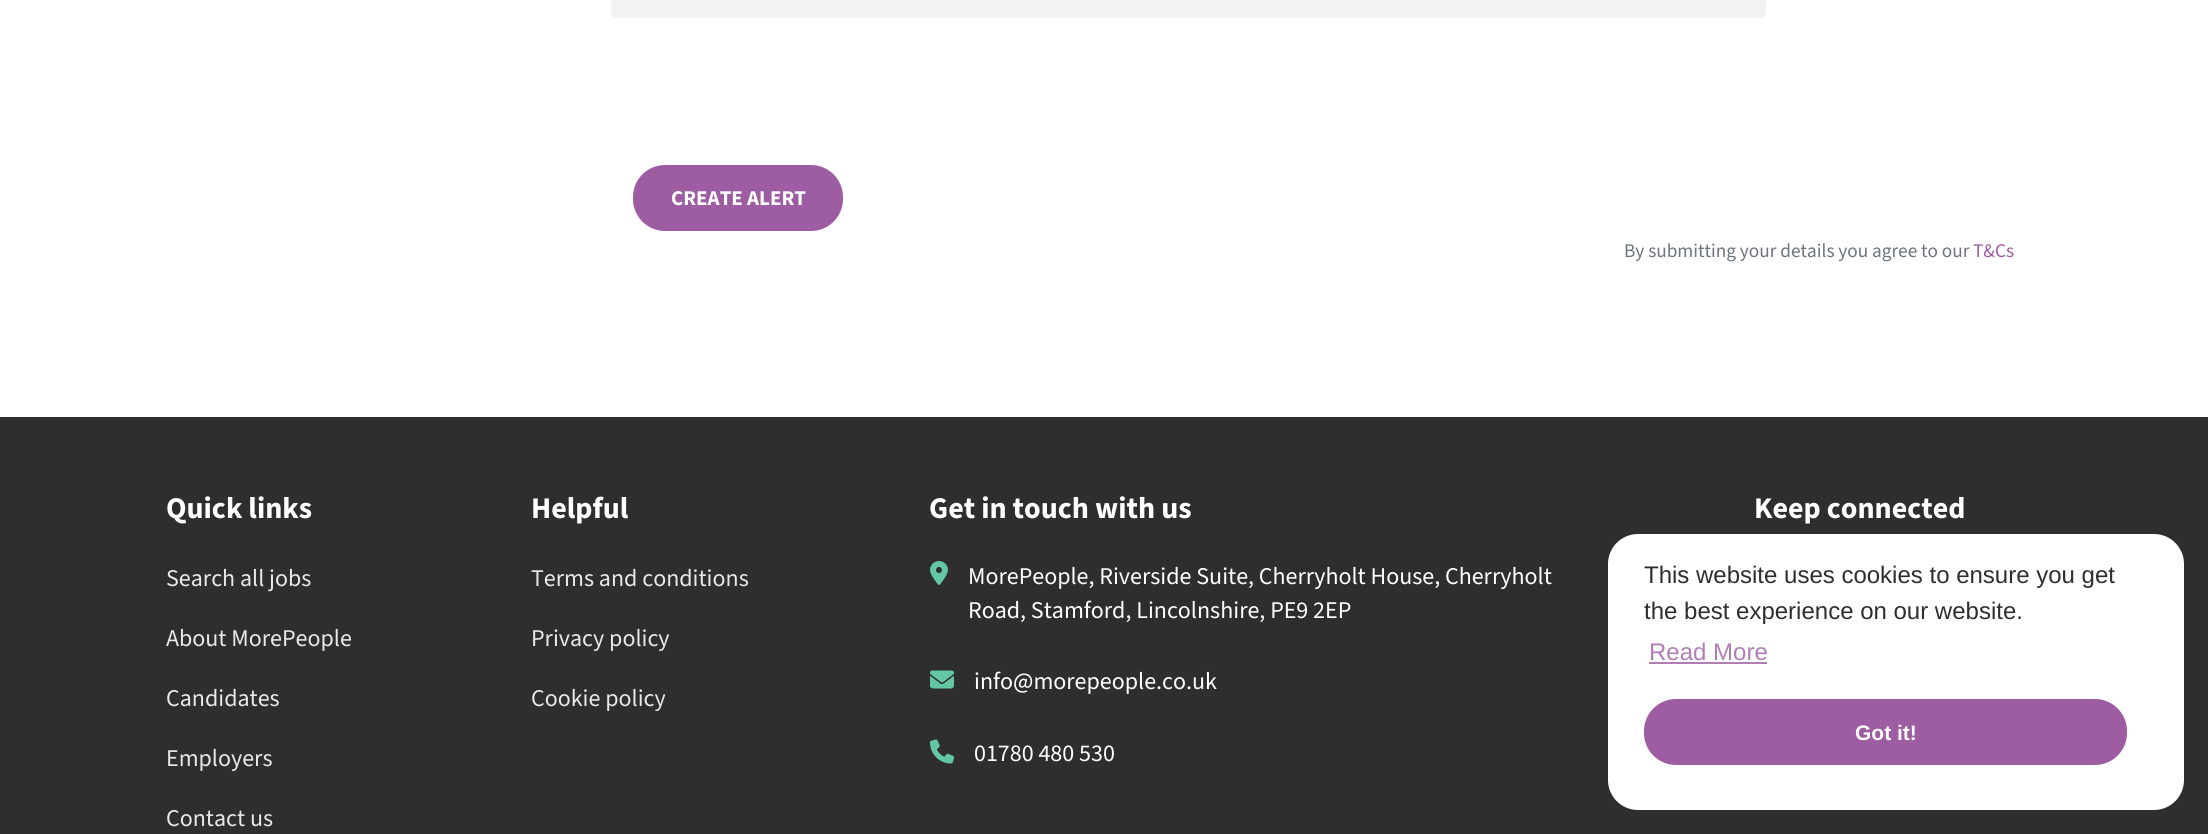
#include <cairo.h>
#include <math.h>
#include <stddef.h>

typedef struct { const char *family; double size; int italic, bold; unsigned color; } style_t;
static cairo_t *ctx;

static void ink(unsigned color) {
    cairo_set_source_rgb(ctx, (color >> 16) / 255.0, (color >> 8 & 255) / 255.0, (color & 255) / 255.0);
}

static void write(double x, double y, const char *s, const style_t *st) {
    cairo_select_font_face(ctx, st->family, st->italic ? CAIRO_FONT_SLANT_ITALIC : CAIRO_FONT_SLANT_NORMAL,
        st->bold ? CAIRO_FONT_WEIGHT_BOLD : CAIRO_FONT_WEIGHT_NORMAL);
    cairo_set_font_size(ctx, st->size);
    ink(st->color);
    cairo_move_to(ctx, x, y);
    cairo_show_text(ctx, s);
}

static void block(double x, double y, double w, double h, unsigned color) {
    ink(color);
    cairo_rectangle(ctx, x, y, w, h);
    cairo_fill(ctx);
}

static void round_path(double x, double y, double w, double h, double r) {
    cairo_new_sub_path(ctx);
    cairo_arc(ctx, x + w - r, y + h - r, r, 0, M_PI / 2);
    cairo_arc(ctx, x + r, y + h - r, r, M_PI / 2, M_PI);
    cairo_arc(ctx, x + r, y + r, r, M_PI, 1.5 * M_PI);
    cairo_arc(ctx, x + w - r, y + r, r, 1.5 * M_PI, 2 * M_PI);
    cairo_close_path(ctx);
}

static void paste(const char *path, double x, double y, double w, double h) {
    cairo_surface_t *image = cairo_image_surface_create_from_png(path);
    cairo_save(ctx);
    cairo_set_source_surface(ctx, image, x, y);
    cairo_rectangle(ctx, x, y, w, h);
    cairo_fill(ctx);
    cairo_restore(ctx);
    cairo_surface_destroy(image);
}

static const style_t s1 = {"Source Sans 3", 21, 0, 1, 0xffffff};
static const style_t s2 = {"Source Sans 3", 19.25, 0, 0, 0x6c757d};
static const style_t s3 = {"Source Sans 3", 19.25, 0, 0, 0x9e5ca3};
static const style_t s4 = {"Source Sans 3", 30, 0, 1, 0xffffff};
static const style_t s5 = {"Source Sans 3", 24, 0, 0, 0xe9e9e9};
static const style_t s6 = {"Source Sans 3", 24, 0, 0, 0xffffff};
static const style_t s7 = {"Liberation Sans", 24, 0, 0, 0x2e2e2e};
static const style_t s8 = {"Liberation Sans", 24, 0, 0, 0xb17db5};
static const style_t s9 = {"Liberation Sans", 21, 0, 1, 0xffffff};

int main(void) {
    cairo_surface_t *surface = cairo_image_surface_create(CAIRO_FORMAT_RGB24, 2208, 834);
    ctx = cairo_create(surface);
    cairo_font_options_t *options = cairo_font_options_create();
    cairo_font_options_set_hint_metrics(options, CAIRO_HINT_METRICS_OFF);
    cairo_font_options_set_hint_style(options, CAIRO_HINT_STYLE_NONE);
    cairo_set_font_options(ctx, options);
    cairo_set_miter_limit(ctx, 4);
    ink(0xffffff);
    cairo_paint(ctx);
    ink(0xf2f2f2);
    round_path(611, -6, 1155, 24, 6);
    cairo_fill(ctx);
    ink(0x9e5ca3);
    round_path(634, 166, 208, 64, 31);
    cairo_fill_preserve(ctx);
    cairo_stroke(ctx);
    write(671, 205, "CREATE ALERT", &s1);
    write(1624, 257, "By submitting your details you agree to our", &s2);
    write(1973, 257, "T&Cs", &s3);
    block(0, 417, 2208, 417, 0x2f2e2e);
    write(166, 518, "Quick links", &s4);
    write(166, 586, "Search all jobs", &s5);
    write(166, 646, "About MorePeople", &s5);
    write(166, 706, "Candidates", &s5);
    write(166, 766, "Employers", &s5);
    write(166, 826, "Contact us", &s5);
    write(531, 518, "Helpful", &s4);
    write(531, 586, "Terms and conditions", &s5);
    write(531, 646, "Privacy policy", &s5);
    write(531, 706, "Cookie policy", &s5);
    write(929, 518, "Get in touch with us", &s4);
    paste("pic1.png", 930, 561, 18, 24);
    write(968, 584, "MorePeople, Riverside Suite, Cherryholt House, Cherryholt", &s6);
    write(968, 618, "Road, Stamford, Lincolnshire, PE9 2EP", &s6);
    paste("pic2.png", 930, 670, 24, 19);
    write(974, 689, "info@morepeople.co.uk", &s6);
    paste("pic3.png", 930, 739, 24, 25);
    write(974, 761, "01780 480 530", &s6);
    write(1754, 518, "Keep connected", &s4);
    round_path(1608, 534, 576, 276, 30);
    cairo_fill(ctx);
    write(1644, 583, "This website uses cookies to ensure you get", &s7);
    write(1644, 619, "the best experience on our website.", &s7);
    write(1649, 660, "Read More", &s8);
    block(1649, 662, 118, 2, 0xb17db5);
    ink(0x9e5ca3);
    round_path(1645, 700, 481, 64, 31);
    cairo_fill_preserve(ctx);
    cairo_stroke(ctx);
    write(1855, 740, "Got it!", &s9);
    cairo_surface_write_to_png(surface, "screenshot.png");
    cairo_font_options_destroy(options);
    cairo_destroy(ctx);
    cairo_surface_destroy(surface);
    return 0;
}
